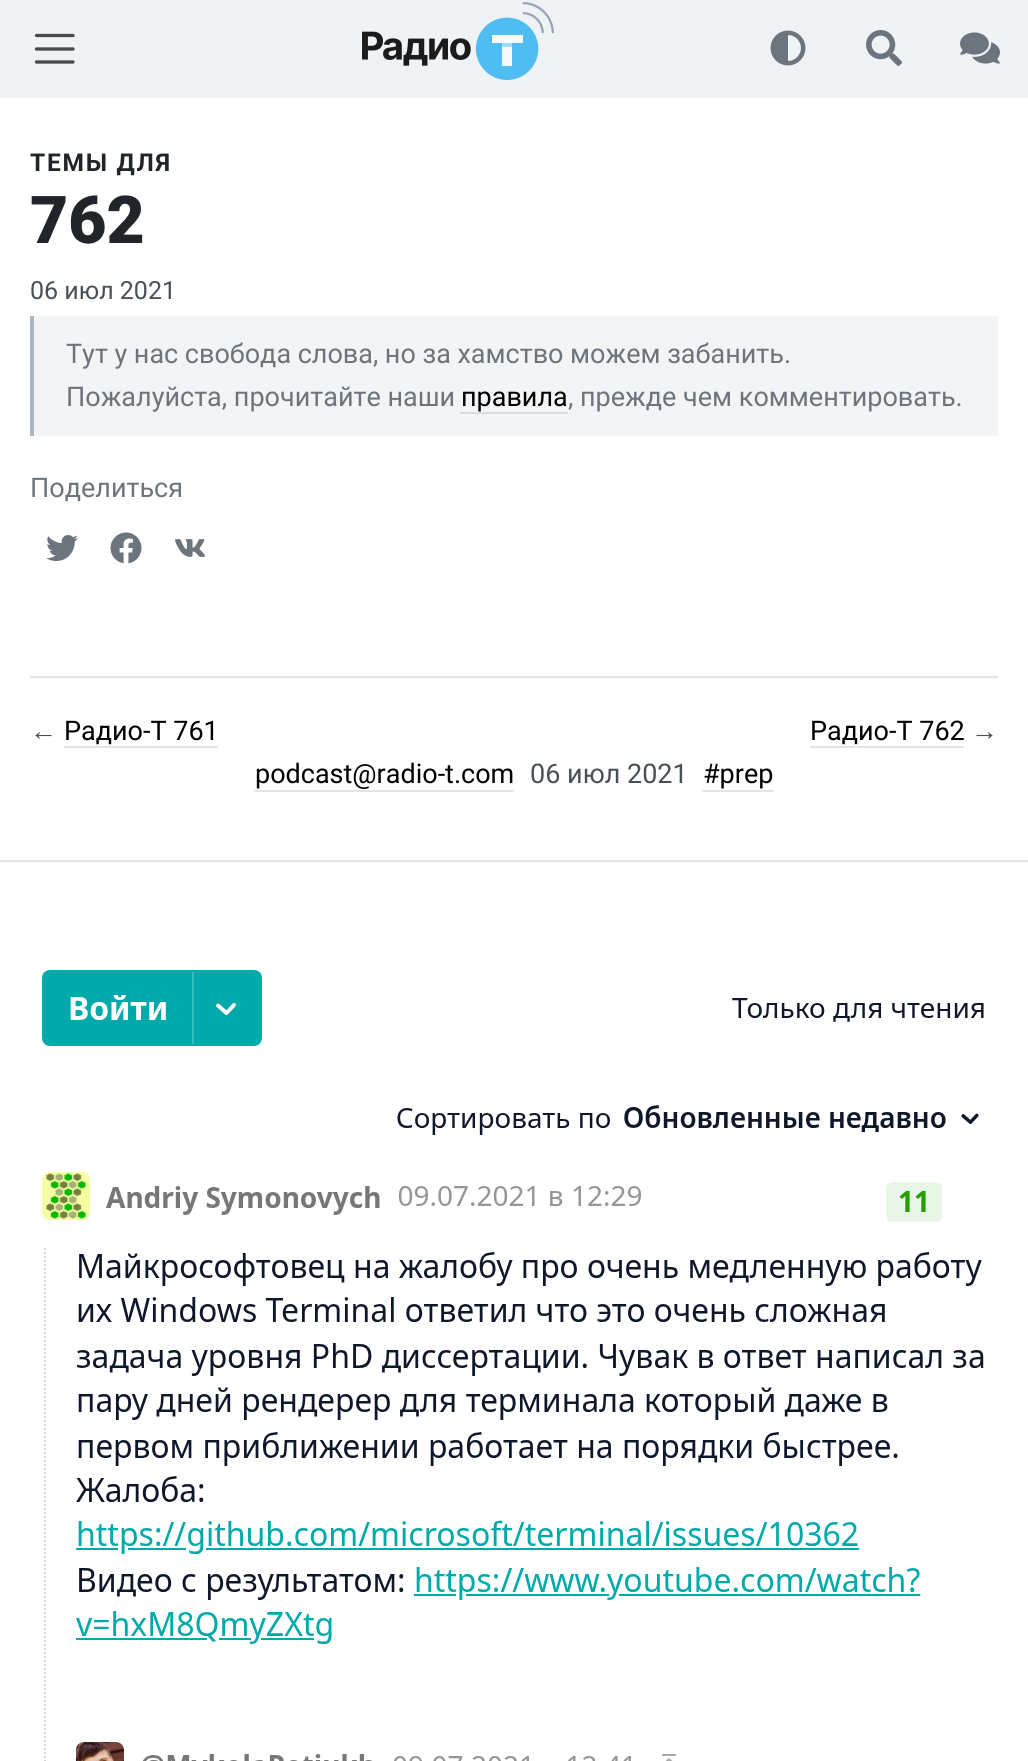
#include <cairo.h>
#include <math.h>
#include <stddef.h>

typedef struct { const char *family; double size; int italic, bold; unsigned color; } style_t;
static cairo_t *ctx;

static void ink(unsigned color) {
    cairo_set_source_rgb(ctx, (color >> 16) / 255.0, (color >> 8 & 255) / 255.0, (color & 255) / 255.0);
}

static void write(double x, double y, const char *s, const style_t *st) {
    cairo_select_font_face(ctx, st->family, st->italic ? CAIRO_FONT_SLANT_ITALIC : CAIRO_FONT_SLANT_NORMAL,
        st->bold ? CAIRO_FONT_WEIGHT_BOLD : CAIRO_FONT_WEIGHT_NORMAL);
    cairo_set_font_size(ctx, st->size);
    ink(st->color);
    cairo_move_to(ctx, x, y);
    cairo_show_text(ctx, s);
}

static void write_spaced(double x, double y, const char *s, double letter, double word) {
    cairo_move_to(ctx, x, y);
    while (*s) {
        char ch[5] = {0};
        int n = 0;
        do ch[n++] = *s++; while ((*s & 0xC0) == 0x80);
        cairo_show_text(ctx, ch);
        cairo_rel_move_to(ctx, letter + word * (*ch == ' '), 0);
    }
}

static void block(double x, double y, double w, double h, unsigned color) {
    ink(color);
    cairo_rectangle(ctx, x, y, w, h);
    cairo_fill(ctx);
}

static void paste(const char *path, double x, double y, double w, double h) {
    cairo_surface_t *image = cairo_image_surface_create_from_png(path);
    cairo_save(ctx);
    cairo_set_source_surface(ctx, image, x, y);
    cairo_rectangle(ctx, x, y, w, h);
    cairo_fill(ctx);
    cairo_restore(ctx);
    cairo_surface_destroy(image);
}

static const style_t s1 = {"Roboto Black", 66, 0, 0, 0x212529};
static const style_t s2 = {"Roboto", 25, 0, 0, 0x495057};
static const style_t s3 = {"Roboto", 27, 0, 0, 0x6c757d};
static const style_t s4 = {"Roboto", 27, 0, 0, 0x000000};
static const style_t s5 = {"Liberation Sans", 27, 0, 0, 0x495057};
static const style_t s6 = {"Roboto", 27, 0, 0, 0x495057};

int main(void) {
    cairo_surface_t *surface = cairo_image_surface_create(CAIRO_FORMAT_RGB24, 1028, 1761);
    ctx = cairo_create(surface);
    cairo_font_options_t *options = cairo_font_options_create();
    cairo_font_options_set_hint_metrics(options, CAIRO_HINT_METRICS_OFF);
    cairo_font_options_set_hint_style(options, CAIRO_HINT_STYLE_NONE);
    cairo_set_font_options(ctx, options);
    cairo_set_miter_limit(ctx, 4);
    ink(0xffffff);
    cairo_paint(ctx);
    block(0, 0, 1028, 98, 0xeff3f6);
    cairo_new_path(ctx);
    cairo_move_to(ctx, 36.5, 35.5);
    cairo_line_to(ctx, 73, 35.5);
    cairo_move_to(ctx, 36.5, 49);
    cairo_line_to(ctx, 73, 49);
    cairo_move_to(ctx, 36.5, 62);
    cairo_line_to(ctx, 73, 62);
    ink(0x48494a);
    cairo_set_line_width(ctx, 3.3);
    cairo_set_line_cap(ctx, CAIRO_LINE_CAP_ROUND);
    cairo_stroke(ctx);
    paste("pic1.png", 362, 2, 192, 78);
    paste("pic2.png", 770, 30, 36, 36);
    paste("pic3.png", 866, 30, 36, 36);
    paste("pic4.png", 960, 32, 40, 32);
    cairo_select_font_face(ctx, "Roboto", CAIRO_FONT_SLANT_NORMAL, CAIRO_FONT_WEIGHT_BOLD);
    cairo_set_font_size(ctx, 24.5);
    ink(0x212529);
    write_spaced(30, 171, "ТЕМЫ ДЛЯ", 1.75, 0);
    write(30, 243, "762", &s1);
    write(30, 299, "06 июл 2021", &s2);
    block(34, 316, 964, 120, 0xf3f4f5);
    block(30, 316, 4, 120, 0xadb5bd);
    cairo_set_font_size(ctx, 27);
    ink(0x6c757d);
    write_spaced(66, 363, "Тут у нас свобода слова, но за хамство можем забанить.", 0, -0.1);
    write(66, 406, "Пожалуйста, прочитайте наши", &s3);
    write(461, 406, "правила", &s4);
    block(460, 412, 108, 2, 0xdadbdd);
    write(568, 406, ", прежде чем комментировать.", &s3);
    write(30, 497, "Поделиться", &s3);
    paste("pic5.png", 46, 535, 32, 26);
    paste("pic6.png", 110, 532, 32, 32);
    paste("pic7.png", 175, 539, 30, 18);
    block(30, 676, 968, 2, 0xe2e2e2);
    write(30, 740, "←", &s5);
    write(64, 740, "Радио-Т 761", &s4);
    block(64, 746, 154, 2, 0xe4e5e6);
    write(810, 740, "Радио-Т 762", &s4);
    block(810, 746, 154, 2, 0xe4e5e6);
    write(971, 740, "→", &s5);
    write(255, 783, "podcast@radio-t.com", &s4);
    block(254, 790, 260, 2, 0xe4e5e6);
    write(530, 783, "06 июл 2021", &s6);
    write(703, 783, "#prep", &s4);
    block(702, 790, 72, 2, 0xe4e5e6);
    block(0, 860, 1028, 2, 0xe2e2e2);
    paste("pic8.png", 42, 970, 942, 791);
    cairo_surface_write_to_png(surface, "screenshot.png");
    cairo_font_options_destroy(options);
    cairo_destroy(ctx);
    cairo_surface_destroy(surface);
    return 0;
}
